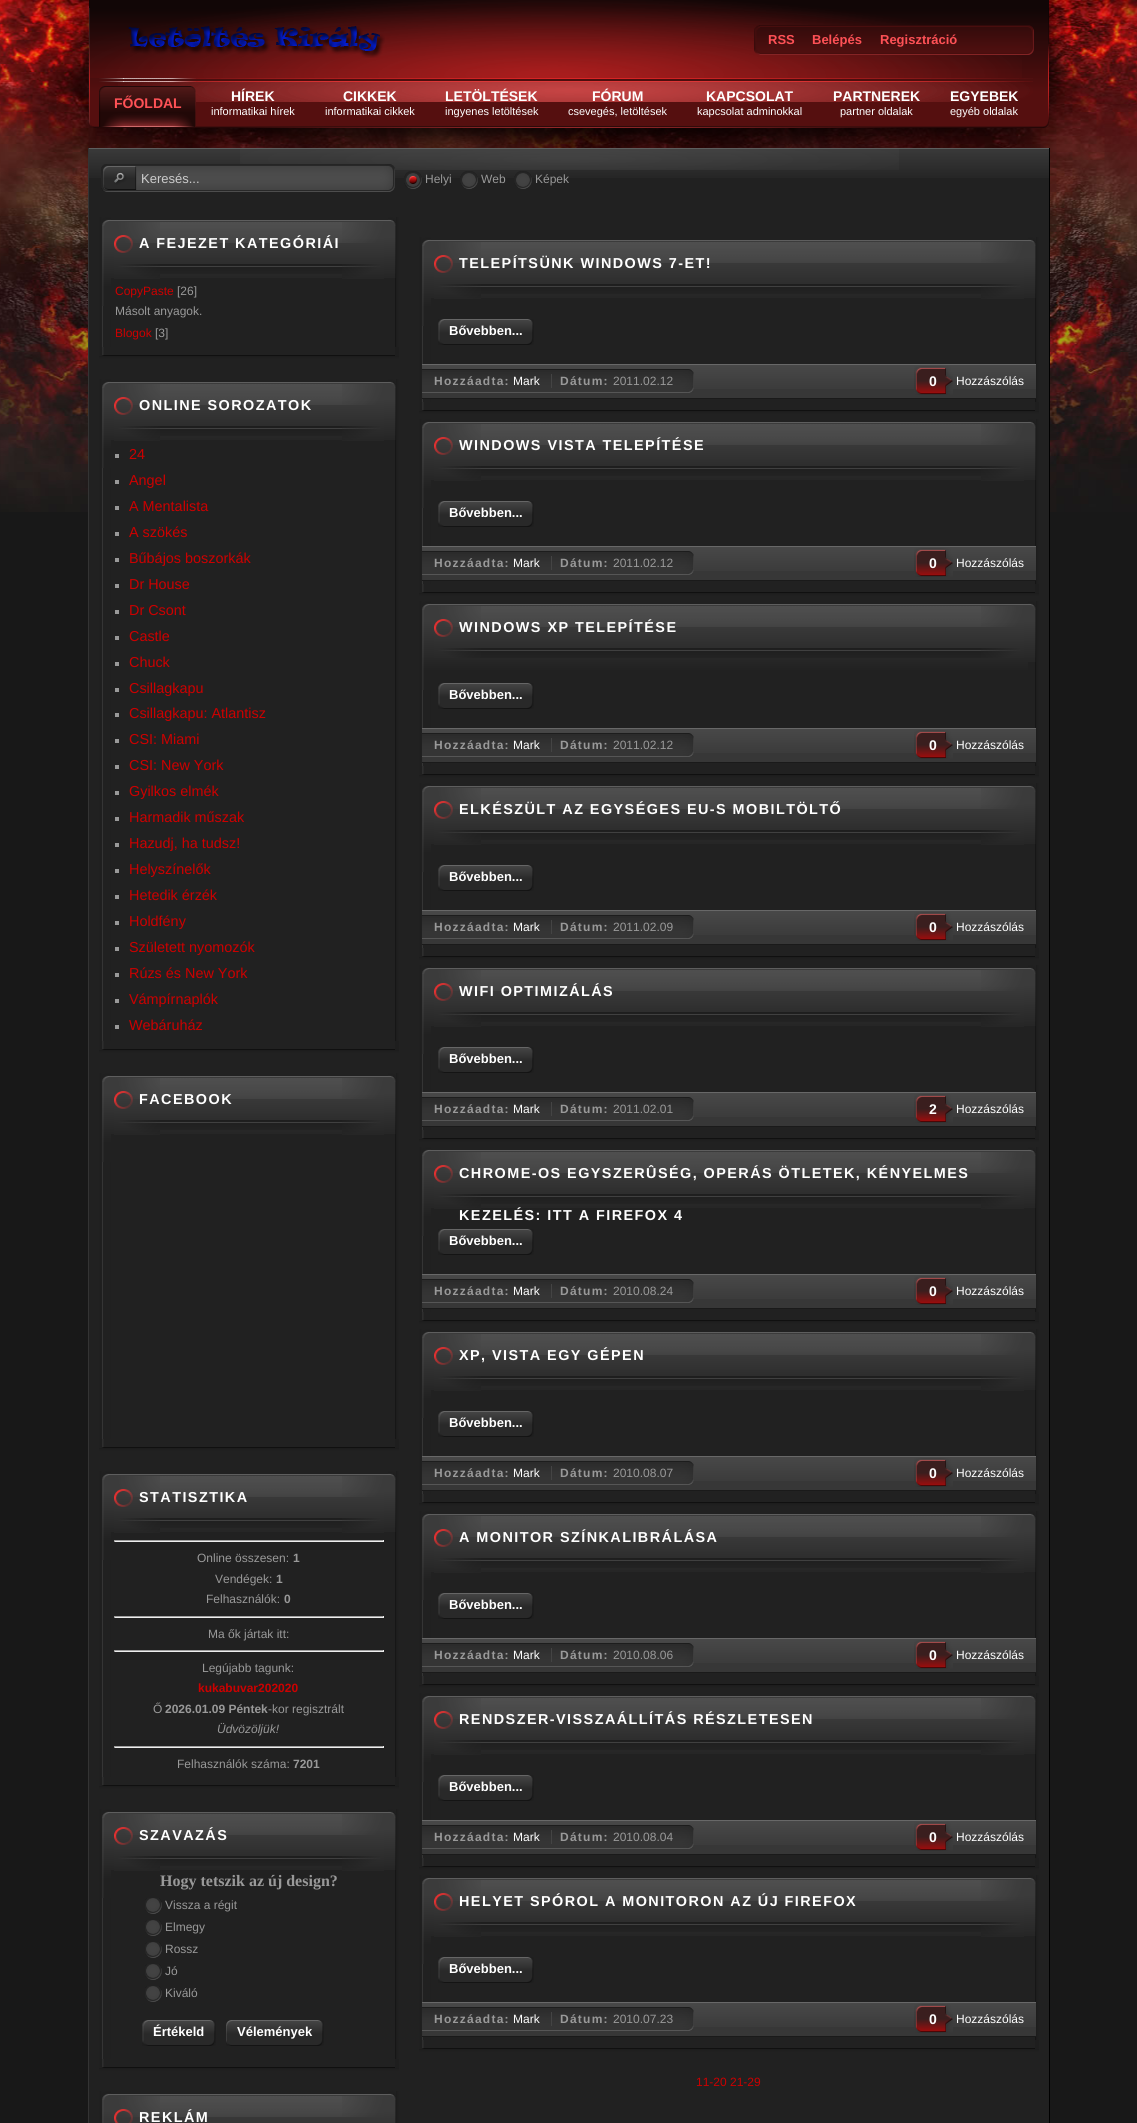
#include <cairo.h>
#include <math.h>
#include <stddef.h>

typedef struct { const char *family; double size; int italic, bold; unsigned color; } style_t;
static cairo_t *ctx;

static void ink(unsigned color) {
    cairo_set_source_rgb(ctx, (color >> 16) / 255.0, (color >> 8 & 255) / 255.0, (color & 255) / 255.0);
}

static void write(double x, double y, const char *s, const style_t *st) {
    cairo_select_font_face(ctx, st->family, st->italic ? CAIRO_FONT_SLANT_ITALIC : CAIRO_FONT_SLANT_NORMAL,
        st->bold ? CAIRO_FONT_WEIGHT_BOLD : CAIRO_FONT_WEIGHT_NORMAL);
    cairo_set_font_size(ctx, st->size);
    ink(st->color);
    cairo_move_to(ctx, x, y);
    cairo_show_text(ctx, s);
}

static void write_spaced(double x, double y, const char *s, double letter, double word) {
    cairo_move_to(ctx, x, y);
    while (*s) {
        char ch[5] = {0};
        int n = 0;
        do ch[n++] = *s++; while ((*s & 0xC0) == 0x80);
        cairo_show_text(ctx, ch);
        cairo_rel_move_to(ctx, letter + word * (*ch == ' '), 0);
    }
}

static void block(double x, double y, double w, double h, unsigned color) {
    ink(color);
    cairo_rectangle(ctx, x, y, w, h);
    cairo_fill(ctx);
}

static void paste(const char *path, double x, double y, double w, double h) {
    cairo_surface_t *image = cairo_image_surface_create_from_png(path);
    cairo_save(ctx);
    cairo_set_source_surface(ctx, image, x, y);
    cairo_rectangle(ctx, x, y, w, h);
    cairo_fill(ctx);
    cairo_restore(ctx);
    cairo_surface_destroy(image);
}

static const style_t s1 = {"Liberation Sans", 13, 0, 1, 0xff5156};
static const style_t s2 = {"Liberation Sans", 14, 0, 1, 0xff5156};
static const style_t s3 = {"Liberation Sans", 14, 0, 1, 0xffffff};
static const style_t s4 = {"Liberation Sans", 11, 0, 0, 0xffffff};
static const style_t s5 = {"Liberation Sans", 13, 0, 0, 0xcccccc};
static const style_t s6 = {"Liberation Sans", 12, 0, 0, 0x999999};
static const style_t s7 = {"Liberation Sans", 12, 0, 0, 0xcc0000};
static const style_t s8 = {"Liberation Sans", 14.4, 0, 0, 0xcc0000};
static const style_t s9 = {"Liberation Sans", 12, 0, 1, 0x999999};
static const style_t s10 = {"Liberation Sans", 12, 0, 1, 0xcc0000};
static const style_t s11 = {"Liberation Sans", 12, 1, 0, 0x999999};
static const style_t s12 = {"Liberation Serif", 16, 0, 1, 0x999999};
static const style_t s13 = {"Liberation Sans", 13, 0, 1, 0xffffff};
static const style_t s14 = {"Liberation Sans", 12, 0, 0, 0xffffff};

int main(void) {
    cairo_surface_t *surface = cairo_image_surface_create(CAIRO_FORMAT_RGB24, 1137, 2123);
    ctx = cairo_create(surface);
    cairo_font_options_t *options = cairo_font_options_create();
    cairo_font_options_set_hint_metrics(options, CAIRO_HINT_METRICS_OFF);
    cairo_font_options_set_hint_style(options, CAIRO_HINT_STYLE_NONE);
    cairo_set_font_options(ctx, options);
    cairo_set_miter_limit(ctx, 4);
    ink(0x181818);
    cairo_paint(ctx);
    paste("pic1.png", 0, 0, 1137, 512);
    paste("pic2.png", 73, 0, 992, 128);
    paste("pic3.png", 90, 0, 932, 78);
    paste("pic4.png", 128, 26, 257, 32);
    paste("pic5.png", 759, 25, 275, 30);
    paste("pic6.png", 754, 25, 6, 30);
    write(768, 44, "RSS", &s1);
    write(812, 44, "Belépés", &s1);
    write(880, 44, "Regisztráció", &s1);
    paste("pic7.png", 118, 78, 915, 24);
    paste("pic8.png", 118, 78, 915, 24);
    paste("pic9.png", 123, 78, 49, 49);
    paste("pic10.png", 99, 78, 25, 49);
    paste("pic11.png", 172, 78, 24, 49);
    write(114, 108, "FŐOLDAL", &s2);
    write(231, 101, "HÍREK", &s3);
    write(211, 115, "informatikai hírek", &s4);
    write(343, 101, "CIKKEK", &s3);
    write(325, 115, "informatikai cikkek", &s4);
    write(445, 101, "LETÖLTÉSEK", &s3);
    write(445, 115, "ingyenes letöltések", &s4);
    write(592, 101, "FÓRUM", &s3);
    write(568, 115, "csevegés, letöltések", &s4);
    write(706, 101, "KAPCSOLAT", &s3);
    write(697, 115, "kapcsolat adminokkal", &s4);
    write(833, 101, "PARTNEREK", &s3);
    write(840, 115, "partner oldalak", &s4);
    write(950, 101, "EGYEBEK", &s3);
    write(950, 115, "egyéb oldalak", &s4);
    paste("pic12.png", 95, 128, 951, 20);
    block(89, 178, 960, 1945, 0x212121);
    paste("pic13.png", 89, 149, 960, 29);
    block(88, 148, 962, 1, 0x5e5e5e);
    block(1049, 148, 1, 1975, 0x000000);
    block(88, 148, 1, 1975, 0x333333);
    paste("pic14.png", 240, 149, 659, 21);
    paste("pic15.png", 101, 164, 294, 28);
    write(141, 183, "Keresés...", &s5);
    paste("pic16.png", 404, 171, 18, 18);
    write(425, 183, "Helyi", &s6);
    paste("pic17.png", 460, 171, 18, 18);
    write(481, 183, "Web", &s6);
    paste("pic17.png", 514, 171, 18, 18);
    write(535, 183, "Képek", &s6);
    paste("pic18.png", 111, 220, 277, 58);
    paste("pic19.png", 99, 217, 12, 130);
    paste("pic20.png", 388, 217, 11, 130);
    paste("pic21.png", 99, 347, 300, 12);
    paste("pic22.png", 102, 217, 9, 89);
    paste("pic23.png", 388, 217, 8, 61);
    paste("pic24.png", 99, 347, 5, 9);
    block(395, 347, 4, 9, 0x1e1e1e);
    paste("pic25.png", 160, 222, 182, 52);
    paste("pic26.png", 114, 222, 46, 57);
    paste("pic27.png", 342, 222, 42, 57);
    paste("pic28.png", 114, 235, 19, 18);
    cairo_select_font_face(ctx, "Liberation Sans", CAIRO_FONT_SLANT_NORMAL, CAIRO_FONT_WEIGHT_BOLD);
    cairo_set_font_size(ctx, 14.4);
    ink(0xffffff);
    write_spaced(139, 248, "A FEJEZET KATEGÓRIÁI", 1.45, 0);
    write(115, 295, "CopyPaste", &s7);
    write(177, 295, "[26]", &s6);
    write(115, 315, "Másolt anyagok.", &s6);
    write(115, 337, "Blogok", &s7);
    write(155, 337, "[3]", &s6);
    paste("pic18.png", 111, 382, 277, 58);
    paste("pic29.png", 99, 379, 12, 662);
    paste("pic30.png", 388, 379, 11, 662);
    paste("pic21.png", 99, 1041, 300, 12);
    paste("pic22.png", 102, 379, 9, 89);
    paste("pic23.png", 388, 379, 8, 61);
    paste("pic24.png", 99, 1041, 5, 9);
    block(395, 1041, 4, 9, 0x1e1e1e);
    paste("pic25.png", 160, 384, 182, 52);
    paste("pic26.png", 114, 384, 46, 57);
    paste("pic27.png", 342, 384, 42, 57);
    paste("pic28.png", 114, 397, 19, 18);
    cairo_select_font_face(ctx, "Liberation Sans", CAIRO_FONT_SLANT_NORMAL, CAIRO_FONT_WEIGHT_BOLD);
    cairo_set_font_size(ctx, 14.4);
    ink(0xffffff);
    write_spaced(139, 410, "ONLINE SOROZATOK", 1.45, 0);
    block(115, 454, 4, 4, 0x999999);
    write(129, 459, "24", &s8);
    block(115, 480, 4, 4, 0x999999);
    write(129, 485, "Angel", &s8);
    block(115, 506, 4, 4, 0x999999);
    write(129, 511, "A Mentalista", &s8);
    block(115, 532, 4, 4, 0x999999);
    write(129, 537, "A szökés", &s8);
    block(115, 558, 4, 4, 0x999999);
    write(129, 563, "Bűbájos boszorkák", &s8);
    block(115, 584, 4, 4, 0x999999);
    write(129, 589, "Dr House", &s8);
    block(115, 610, 4, 4, 0x999999);
    write(129, 615, "Dr Csont", &s8);
    block(115, 636, 4, 4, 0x999999);
    write(129, 641, "Castle", &s8);
    block(115, 662, 4, 4, 0x999999);
    write(129, 667, "Chuck", &s8);
    block(115, 688, 4, 4, 0x999999);
    write(129, 693, "Csillagkapu", &s8);
    block(115, 713, 4, 4, 0x999999);
    write(129, 718, "Csillagkapu: Atlantisz", &s8);
    block(115, 739, 4, 4, 0x999999);
    write(129, 744, "CSI: Miami", &s8);
    block(115, 765, 4, 4, 0x999999);
    write(129, 770, "CSI: New York", &s8);
    block(115, 791, 4, 4, 0x999999);
    write(129, 796, "Gyilkos elmék", &s8);
    block(115, 817, 4, 4, 0x999999);
    write(129, 822, "Harmadik műszak", &s8);
    block(115, 843, 4, 4, 0x999999);
    write(129, 848, "Hazudj, ha tudsz!", &s8);
    block(115, 869, 4, 4, 0x999999);
    write(129, 874, "Helyszínelők", &s8);
    block(115, 895, 4, 4, 0x999999);
    write(129, 900, "Hetedik érzék", &s8);
    block(115, 921, 4, 4, 0x999999);
    write(129, 926, "Holdfény", &s8);
    block(115, 947, 4, 4, 0x999999);
    write(129, 952, "Született nyomozók", &s8);
    block(115, 973, 4, 4, 0x999999);
    write(129, 978, "Rúzs és New York", &s8);
    block(115, 999, 4, 4, 0x999999);
    write(129, 1004, "Vámpírnaplók", &s8);
    block(115, 1025, 4, 4, 0x999999);
    write(129, 1030, "Webáruház", &s8);
    paste("pic18.png", 111, 1076, 277, 58);
    paste("pic31.png", 99, 1073, 12, 366);
    paste("pic32.png", 388, 1073, 11, 366);
    paste("pic21.png", 99, 1439, 300, 12);
    paste("pic22.png", 102, 1073, 9, 89);
    paste("pic23.png", 388, 1073, 8, 61);
    paste("pic24.png", 99, 1439, 5, 9);
    block(395, 1439, 4, 9, 0x1e1e1e);
    paste("pic25.png", 160, 1078, 182, 52);
    paste("pic26.png", 114, 1078, 46, 57);
    paste("pic27.png", 342, 1078, 42, 57);
    paste("pic28.png", 114, 1091, 19, 18);
    cairo_select_font_face(ctx, "Liberation Sans", CAIRO_FONT_SLANT_NORMAL, CAIRO_FONT_WEIGHT_BOLD);
    ink(0xffffff);
    write_spaced(139, 1104, "FACEBOOK", 1.45, 0);
    paste("pic18.png", 111, 1474, 277, 58);
    paste("pic33.png", 99, 1471, 12, 306);
    paste("pic34.png", 388, 1471, 11, 306);
    paste("pic21.png", 99, 1777, 300, 12);
    paste("pic22.png", 102, 1471, 9, 89);
    paste("pic23.png", 388, 1471, 8, 61);
    paste("pic24.png", 99, 1777, 5, 9);
    block(395, 1777, 4, 9, 0x1e1e1e);
    paste("pic25.png", 160, 1476, 182, 52);
    paste("pic26.png", 114, 1476, 46, 57);
    paste("pic27.png", 342, 1476, 42, 57);
    paste("pic28.png", 114, 1489, 19, 18);
    ink(0xffffff);
    write_spaced(139, 1502, "STATISZTIKA", 1.45, 0);
    block(114, 1540, 270, 1, 0x9f9f9f);
    block(383, 1540, 1, 2, 0xeeeeee);
    block(114, 1541, 270, 1, 0xeeeeee);
    block(114, 1540, 1, 2, 0x9f9f9f);
    write(197, 1562, "Online összesen:", &s6);
    write(293, 1562, "1", &s9);
    write(215, 1583, "Vendégek:", &s6);
    write(276, 1583, "1", &s9);
    write(206, 1603, "Felhasználók:", &s6);
    write(284, 1603, "0", &s9);
    block(114, 1616, 270, 1, 0x9f9f9f);
    block(383, 1616, 1, 2, 0xeeeeee);
    block(114, 1617, 270, 1, 0xeeeeee);
    block(114, 1616, 1, 2, 0x9f9f9f);
    write(208, 1638, "Ma ők jártak itt:", &s6);
    block(114, 1650, 270, 1, 0x9f9f9f);
    block(383, 1650, 1, 2, 0xeeeeee);
    block(114, 1651, 270, 1, 0xeeeeee);
    block(114, 1650, 1, 2, 0x9f9f9f);
    write(202, 1672, "Legújabb tagunk:", &s6);
    write(198, 1692, "kukabuvar202020", &s10);
    write(153, 1713, "Ő", &s6);
    write(165, 1713, "2026.01.09 Péntek", &s9);
    write(268, 1713, "-kor regisztrált", &s6);
    write(217, 1733, "Üdvözöljük!", &s11);
    block(114, 1746, 270, 1, 0x9f9f9f);
    block(383, 1746, 1, 2, 0xeeeeee);
    block(114, 1747, 270, 1, 0xeeeeee);
    block(114, 1746, 1, 2, 0x9f9f9f);
    write(177, 1768, "Felhasználók száma:", &s6);
    write(293, 1768, "7201", &s9);
    paste("pic18.png", 111, 1812, 277, 58);
    paste("pic35.png", 99, 1809, 12, 250);
    paste("pic36.png", 388, 1809, 11, 250);
    paste("pic21.png", 99, 2059, 300, 12);
    paste("pic22.png", 102, 1809, 9, 89);
    paste("pic23.png", 388, 1809, 8, 61);
    paste("pic24.png", 99, 2059, 5, 9);
    block(395, 2059, 4, 9, 0x1e1e1e);
    paste("pic25.png", 160, 1814, 182, 52);
    paste("pic26.png", 114, 1814, 46, 57);
    paste("pic27.png", 342, 1814, 42, 57);
    paste("pic28.png", 114, 1827, 19, 18);
    cairo_set_font_size(ctx, 14.4);
    ink(0xffffff);
    write_spaced(139, 1840, "SZAVAZÁS", 1.45, 0);
    write(160, 1886, "Hogy tetszik az új design?", &s12);
    paste("pic37.png", 145, 1898, 17, 16);
    write(165, 1909, "Vissza a régit", &s6);
    paste("pic37.png", 145, 1920, 17, 16);
    write(165, 1931, "Elmegy", &s6);
    paste("pic37.png", 145, 1942, 17, 16);
    write(165, 1953, "Rossz", &s6);
    paste("pic37.png", 145, 1964, 17, 16);
    write(165, 1975, "Jó", &s6);
    paste("pic37.png", 145, 1986, 17, 16);
    write(165, 1997, "Kiváló", &s6);
    paste("pic38.png", 148, 2020, 68, 26);
    paste("pic39.png", 142, 2020, 6, 26);
    write(153, 2036, "Értékeld", &s13);
    paste("pic40.png", 232, 2020, 92, 26);
    paste("pic41.png", 226, 2020, 6, 26);
    write(237, 2036, "Vélemények", &s13);
    paste("pic42.png", 111, 2094, 277, 29);
    paste("pic43.png", 99, 2091, 3, 32);
    paste("pic44.png", 396, 2091, 3, 32);
    paste("pic45.png", 102, 2091, 9, 32);
    paste("pic46.png", 388, 2091, 8, 32);
    paste("pic47.png", 160, 2096, 182, 21);
    paste("pic48.png", 114, 2096, 46, 21);
    paste("pic49.png", 342, 2096, 42, 21);
    paste("pic50.png", 114, 2109, 19, 14);
    cairo_set_font_size(ctx, 14.4);
    write_spaced(139, 2122, "REKLÁM", 1.45, 0);
    paste("pic51.png", 431, 240, 597, 58);
    paste("pic52.png", 419, 237, 12, 165);
    paste("pic53.png", 1028, 237, 11, 165);
    paste("pic54.png", 419, 402, 620, 12);
    paste("pic55.png", 422, 237, 9, 89);
    paste("pic23.png", 1028, 237, 8, 61);
    paste("pic56.png", 419, 402, 5, 9);
    block(1035, 402, 4, 9, 0x1e1e1e);
    paste("pic57.png", 481, 242, 500, 52);
    paste("pic58.png", 434, 242, 47, 57);
    paste("pic59.png", 981, 242, 43, 57);
    paste("pic28.png", 434, 255, 19, 18);
    ink(0xffffff);
    write_spaced(459, 268, "TELEPÍTSÜNK WINDOWS 7-ET!", 1.45, 0);
    paste("pic60.png", 444, 319, 90, 26);
    paste("pic39.png", 438, 319, 6, 26);
    write(449, 335, "Bővebben...", &s13);
    block(423, 389, 613, 9, 0x373737);
    paste("pic61.png", 422, 364, 614, 25);
    block(422, 398, 614, 1, 0x1a1a1a);
    paste("pic62.png", 422, 369, 272, 24);
    cairo_set_font_size(ctx, 12);
    ink(0x999999);
    write_spaced(434, 385, "Hozzáadta:", 1.25, 0);
    write(513, 385, "Mark", &s14);
    cairo_select_font_face(ctx, "Liberation Sans", CAIRO_FONT_SLANT_NORMAL, CAIRO_FONT_WEIGHT_BOLD);
    ink(0x999999);
    write_spaced(560, 385, "Dátum:", 1.25, 0);
    block(551, 374, 1, 14, 0x444444);
    write(613, 385, "2011.02.12", &s6);
    paste("pic63.png", 914, 366, 39, 29);
    write(929, 386, "0", &s3);
    write(956, 385, "Hozzászólás", &s14);
    paste("pic51.png", 431, 422, 597, 58);
    paste("pic52.png", 419, 419, 12, 165);
    paste("pic53.png", 1028, 419, 11, 165);
    paste("pic54.png", 419, 584, 620, 12);
    paste("pic55.png", 422, 419, 9, 89);
    paste("pic23.png", 1028, 419, 8, 61);
    paste("pic56.png", 419, 584, 5, 9);
    block(1035, 584, 4, 9, 0x1e1e1e);
    paste("pic57.png", 481, 424, 500, 52);
    paste("pic58.png", 434, 424, 47, 57);
    paste("pic59.png", 981, 424, 43, 57);
    paste("pic28.png", 434, 437, 19, 18);
    cairo_select_font_face(ctx, "Liberation Sans", CAIRO_FONT_SLANT_NORMAL, CAIRO_FONT_WEIGHT_BOLD);
    cairo_set_font_size(ctx, 14.4);
    ink(0xffffff);
    write_spaced(459, 450, "WINDOWS VISTA TELEPÍTÉSE", 1.45, 0);
    paste("pic60.png", 444, 501, 90, 26);
    paste("pic39.png", 438, 501, 6, 26);
    write(449, 517, "Bővebben...", &s13);
    block(423, 571, 613, 9, 0x373737);
    paste("pic61.png", 422, 546, 614, 25);
    block(422, 580, 614, 1, 0x1a1a1a);
    paste("pic62.png", 422, 551, 272, 24);
    cairo_set_font_size(ctx, 12);
    ink(0x999999);
    write_spaced(434, 567, "Hozzáadta:", 1.25, 0);
    write(513, 567, "Mark", &s14);
    cairo_select_font_face(ctx, "Liberation Sans", CAIRO_FONT_SLANT_NORMAL, CAIRO_FONT_WEIGHT_BOLD);
    ink(0x999999);
    write_spaced(560, 567, "Dátum:", 1.25, 0);
    block(551, 556, 1, 14, 0x444444);
    write(613, 567, "2011.02.12", &s6);
    paste("pic63.png", 914, 548, 39, 29);
    write(929, 568, "0", &s3);
    write(956, 567, "Hozzászólás", &s14);
    paste("pic64.png", 431, 604, 597, 68);
    paste("pic52.png", 419, 601, 12, 165);
    paste("pic53.png", 1028, 601, 11, 165);
    paste("pic54.png", 419, 766, 620, 12);
    paste("pic55.png", 422, 601, 9, 89);
    paste("pic23.png", 1028, 601, 8, 61);
    paste("pic56.png", 419, 766, 5, 9);
    block(1035, 766, 4, 9, 0x1e1e1e);
    paste("pic57.png", 481, 606, 500, 52);
    paste("pic65.png", 434, 606, 47, 52);
    paste("pic66.png", 981, 606, 43, 52);
    paste("pic28.png", 434, 619, 19, 18);
    cairo_select_font_face(ctx, "Liberation Sans", CAIRO_FONT_SLANT_NORMAL, CAIRO_FONT_WEIGHT_BOLD);
    cairo_set_font_size(ctx, 14.4);
    ink(0xffffff);
    write_spaced(459, 632, "WINDOWS XP TELEPÍTÉSE", 1.45, 0);
    paste("pic60.png", 444, 683, 90, 26);
    paste("pic39.png", 438, 683, 6, 26);
    write(449, 699, "Bővebben...", &s13);
    block(423, 753, 613, 9, 0x373737);
    paste("pic61.png", 422, 728, 614, 25);
    block(422, 762, 614, 1, 0x1a1a1a);
    paste("pic62.png", 422, 733, 272, 24);
    cairo_set_font_size(ctx, 12);
    ink(0x999999);
    write_spaced(434, 749, "Hozzáadta:", 1.25, 0);
    write(513, 749, "Mark", &s14);
    cairo_select_font_face(ctx, "Liberation Sans", CAIRO_FONT_SLANT_NORMAL, CAIRO_FONT_WEIGHT_BOLD);
    ink(0x999999);
    write_spaced(560, 749, "Dátum:", 1.25, 0);
    block(551, 738, 1, 14, 0x444444);
    write(613, 749, "2011.02.12", &s6);
    paste("pic63.png", 914, 730, 39, 29);
    write(929, 750, "0", &s3);
    write(956, 749, "Hozzászólás", &s14);
    paste("pic51.png", 431, 786, 597, 58);
    paste("pic52.png", 419, 783, 12, 165);
    paste("pic53.png", 1028, 783, 11, 165);
    paste("pic54.png", 419, 948, 620, 12);
    paste("pic55.png", 422, 783, 9, 89);
    paste("pic23.png", 1028, 783, 8, 61);
    paste("pic56.png", 419, 948, 5, 9);
    block(1035, 948, 4, 9, 0x1e1e1e);
    paste("pic57.png", 481, 788, 500, 52);
    paste("pic58.png", 434, 788, 47, 57);
    paste("pic59.png", 981, 788, 43, 57);
    paste("pic28.png", 434, 801, 19, 18);
    cairo_select_font_face(ctx, "Liberation Sans", CAIRO_FONT_SLANT_NORMAL, CAIRO_FONT_WEIGHT_BOLD);
    cairo_set_font_size(ctx, 14.4);
    ink(0xffffff);
    write_spaced(459, 814, "ELKÉSZÜLT AZ EGYSÉGES EU-S MOBILTÖLTŐ", 1.45, 0);
    paste("pic60.png", 444, 865, 90, 26);
    paste("pic39.png", 438, 865, 6, 26);
    write(449, 881, "Bővebben...", &s13);
    block(423, 935, 613, 9, 0x373737);
    paste("pic61.png", 422, 910, 614, 25);
    block(422, 944, 614, 1, 0x1a1a1a);
    paste("pic62.png", 422, 915, 272, 24);
    cairo_set_font_size(ctx, 12);
    ink(0x999999);
    write_spaced(434, 931, "Hozzáadta:", 1.25, 0);
    write(513, 931, "Mark", &s14);
    cairo_select_font_face(ctx, "Liberation Sans", CAIRO_FONT_SLANT_NORMAL, CAIRO_FONT_WEIGHT_BOLD);
    ink(0x999999);
    write_spaced(560, 931, "Dátum:", 1.25, 0);
    block(551, 920, 1, 14, 0x444444);
    write(613, 931, "2011.02.09", &s6);
    paste("pic63.png", 914, 912, 39, 29);
    write(929, 932, "0", &s3);
    write(956, 931, "Hozzászólás", &s14);
    paste("pic51.png", 431, 968, 597, 58);
    paste("pic52.png", 419, 965, 12, 165);
    paste("pic53.png", 1028, 965, 11, 165);
    paste("pic54.png", 419, 1130, 620, 12);
    paste("pic55.png", 422, 965, 9, 89);
    paste("pic23.png", 1028, 965, 8, 61);
    paste("pic56.png", 419, 1130, 5, 9);
    block(1035, 1130, 4, 9, 0x1e1e1e);
    paste("pic57.png", 481, 970, 500, 52);
    paste("pic58.png", 434, 970, 47, 57);
    paste("pic59.png", 981, 970, 43, 57);
    paste("pic28.png", 434, 983, 19, 18);
    cairo_select_font_face(ctx, "Liberation Sans", CAIRO_FONT_SLANT_NORMAL, CAIRO_FONT_WEIGHT_BOLD);
    cairo_set_font_size(ctx, 14.4);
    ink(0xffffff);
    write_spaced(459, 996, "WIFI OPTIMIZÁLÁS", 1.45, 0);
    paste("pic60.png", 444, 1047, 90, 26);
    paste("pic39.png", 438, 1047, 6, 26);
    write(449, 1063, "Bővebben...", &s13);
    block(423, 1117, 613, 9, 0x373737);
    paste("pic61.png", 422, 1092, 614, 25);
    block(422, 1126, 614, 1, 0x1a1a1a);
    paste("pic62.png", 422, 1097, 272, 24);
    cairo_set_font_size(ctx, 12);
    ink(0x999999);
    write_spaced(434, 1113, "Hozzáadta:", 1.25, 0);
    write(513, 1113, "Mark", &s14);
    cairo_select_font_face(ctx, "Liberation Sans", CAIRO_FONT_SLANT_NORMAL, CAIRO_FONT_WEIGHT_BOLD);
    ink(0x999999);
    write_spaced(560, 1113, "Dátum:", 1.25, 0);
    block(551, 1102, 1, 14, 0x444444);
    write(613, 1113, "2011.02.01", &s6);
    paste("pic63.png", 914, 1094, 39, 29);
    write(929, 1114, "2", &s3);
    write(956, 1113, "Hozzászólás", &s14);
    paste("pic51.png", 431, 1150, 597, 58);
    paste("pic52.png", 419, 1147, 12, 165);
    paste("pic53.png", 1028, 1147, 11, 165);
    paste("pic54.png", 419, 1312, 620, 12);
    paste("pic55.png", 422, 1147, 9, 89);
    paste("pic23.png", 1028, 1147, 8, 61);
    paste("pic56.png", 419, 1312, 5, 9);
    block(1035, 1312, 4, 9, 0x1e1e1e);
    paste("pic57.png", 481, 1152, 500, 52);
    paste("pic58.png", 434, 1152, 47, 57);
    paste("pic59.png", 981, 1152, 43, 57);
    paste("pic28.png", 434, 1165, 19, 18);
    cairo_select_font_face(ctx, "Liberation Sans", CAIRO_FONT_SLANT_NORMAL, CAIRO_FONT_WEIGHT_BOLD);
    cairo_set_font_size(ctx, 14.4);
    ink(0xffffff);
    write_spaced(459, 1178, "CHROME-OS EGYSZERÛSÉG, OPERÁS ÖTLETEK, KÉNYELMES", 1.45, 0);
    write_spaced(459, 1220, "KEZELÉS: ITT A FIREFOX 4", 1.45, 0);
    paste("pic60.png", 444, 1229, 90, 26);
    paste("pic39.png", 438, 1229, 6, 26);
    write(449, 1245, "Bővebben...", &s13);
    block(423, 1299, 613, 9, 0x373737);
    paste("pic61.png", 422, 1274, 614, 25);
    block(422, 1308, 614, 1, 0x1a1a1a);
    paste("pic62.png", 422, 1279, 272, 24);
    cairo_set_font_size(ctx, 12);
    ink(0x999999);
    write_spaced(434, 1295, "Hozzáadta:", 1.25, 0);
    write(513, 1295, "Mark", &s14);
    cairo_select_font_face(ctx, "Liberation Sans", CAIRO_FONT_SLANT_NORMAL, CAIRO_FONT_WEIGHT_BOLD);
    ink(0x999999);
    write_spaced(560, 1295, "Dátum:", 1.25, 0);
    block(551, 1284, 1, 14, 0x444444);
    write(613, 1295, "2010.08.24", &s6);
    paste("pic63.png", 914, 1276, 39, 29);
    write(929, 1296, "0", &s3);
    write(956, 1295, "Hozzászólás", &s14);
    paste("pic51.png", 431, 1332, 597, 58);
    paste("pic52.png", 419, 1329, 12, 165);
    paste("pic53.png", 1028, 1329, 11, 165);
    paste("pic54.png", 419, 1494, 620, 12);
    paste("pic55.png", 422, 1329, 9, 89);
    paste("pic23.png", 1028, 1329, 8, 61);
    paste("pic56.png", 419, 1494, 5, 9);
    block(1035, 1494, 4, 9, 0x1e1e1e);
    paste("pic57.png", 481, 1334, 500, 52);
    paste("pic58.png", 434, 1334, 47, 57);
    paste("pic59.png", 981, 1334, 43, 57);
    paste("pic28.png", 434, 1347, 19, 18);
    cairo_select_font_face(ctx, "Liberation Sans", CAIRO_FONT_SLANT_NORMAL, CAIRO_FONT_WEIGHT_BOLD);
    cairo_set_font_size(ctx, 14.4);
    ink(0xffffff);
    write_spaced(459, 1360, "XP, VISTA EGY GÉPEN", 1.45, 0);
    paste("pic60.png", 444, 1411, 90, 26);
    paste("pic39.png", 438, 1411, 6, 26);
    write(449, 1427, "Bővebben...", &s13);
    block(423, 1481, 613, 9, 0x373737);
    paste("pic61.png", 422, 1456, 614, 25);
    block(422, 1490, 614, 1, 0x1a1a1a);
    paste("pic62.png", 422, 1461, 272, 24);
    cairo_set_font_size(ctx, 12);
    ink(0x999999);
    write_spaced(434, 1477, "Hozzáadta:", 1.25, 0);
    write(513, 1477, "Mark", &s14);
    cairo_select_font_face(ctx, "Liberation Sans", CAIRO_FONT_SLANT_NORMAL, CAIRO_FONT_WEIGHT_BOLD);
    ink(0x999999);
    write_spaced(560, 1477, "Dátum:", 1.25, 0);
    block(551, 1466, 1, 14, 0x444444);
    write(613, 1477, "2010.08.07", &s6);
    paste("pic63.png", 914, 1458, 39, 29);
    write(929, 1478, "0", &s3);
    write(956, 1477, "Hozzászólás", &s14);
    paste("pic51.png", 431, 1514, 597, 58);
    paste("pic52.png", 419, 1511, 12, 165);
    paste("pic53.png", 1028, 1511, 11, 165);
    paste("pic54.png", 419, 1676, 620, 12);
    paste("pic55.png", 422, 1511, 9, 89);
    paste("pic23.png", 1028, 1511, 8, 61);
    paste("pic56.png", 419, 1676, 5, 9);
    block(1035, 1676, 4, 9, 0x1e1e1e);
    paste("pic57.png", 481, 1516, 500, 52);
    paste("pic58.png", 434, 1516, 47, 57);
    paste("pic59.png", 981, 1516, 43, 57);
    paste("pic28.png", 434, 1529, 19, 18);
    cairo_select_font_face(ctx, "Liberation Sans", CAIRO_FONT_SLANT_NORMAL, CAIRO_FONT_WEIGHT_BOLD);
    cairo_set_font_size(ctx, 14.4);
    ink(0xffffff);
    write_spaced(459, 1542, "A MONITOR SZÍNKALIBRÁLÁSA", 1.45, 0);
    paste("pic60.png", 444, 1593, 90, 26);
    paste("pic39.png", 438, 1593, 6, 26);
    write(449, 1609, "Bővebben...", &s13);
    block(423, 1663, 613, 9, 0x373737);
    paste("pic61.png", 422, 1638, 614, 25);
    block(422, 1672, 614, 1, 0x1a1a1a);
    paste("pic62.png", 422, 1643, 272, 24);
    cairo_set_font_size(ctx, 12);
    ink(0x999999);
    write_spaced(434, 1659, "Hozzáadta:", 1.25, 0);
    write(513, 1659, "Mark", &s14);
    cairo_select_font_face(ctx, "Liberation Sans", CAIRO_FONT_SLANT_NORMAL, CAIRO_FONT_WEIGHT_BOLD);
    ink(0x999999);
    write_spaced(560, 1659, "Dátum:", 1.25, 0);
    block(551, 1648, 1, 14, 0x444444);
    write(613, 1659, "2010.08.06", &s6);
    paste("pic63.png", 914, 1640, 39, 29);
    write(929, 1660, "0", &s3);
    write(956, 1659, "Hozzászólás", &s14);
    paste("pic51.png", 431, 1696, 597, 58);
    paste("pic52.png", 419, 1693, 12, 165);
    paste("pic53.png", 1028, 1693, 11, 165);
    paste("pic54.png", 419, 1858, 620, 12);
    paste("pic55.png", 422, 1693, 9, 89);
    paste("pic23.png", 1028, 1693, 8, 61);
    paste("pic56.png", 419, 1858, 5, 9);
    block(1035, 1858, 4, 9, 0x1e1e1e);
    paste("pic57.png", 481, 1698, 500, 52);
    paste("pic58.png", 434, 1698, 47, 57);
    paste("pic59.png", 981, 1698, 43, 57);
    paste("pic28.png", 434, 1711, 19, 18);
    cairo_select_font_face(ctx, "Liberation Sans", CAIRO_FONT_SLANT_NORMAL, CAIRO_FONT_WEIGHT_BOLD);
    cairo_set_font_size(ctx, 14.4);
    ink(0xffffff);
    write_spaced(459, 1724, "RENDSZER-VISSZAÁLLÍTÁS RÉSZLETESEN", 1.45, 0);
    paste("pic60.png", 444, 1775, 90, 26);
    paste("pic39.png", 438, 1775, 6, 26);
    write(449, 1791, "Bővebben...", &s13);
    block(423, 1845, 613, 9, 0x373737);
    paste("pic61.png", 422, 1820, 614, 25);
    block(422, 1854, 614, 1, 0x1a1a1a);
    paste("pic62.png", 422, 1825, 272, 24);
    cairo_set_font_size(ctx, 12);
    ink(0x999999);
    write_spaced(434, 1841, "Hozzáadta:", 1.25, 0);
    write(513, 1841, "Mark", &s14);
    cairo_select_font_face(ctx, "Liberation Sans", CAIRO_FONT_SLANT_NORMAL, CAIRO_FONT_WEIGHT_BOLD);
    ink(0x999999);
    write_spaced(560, 1841, "Dátum:", 1.25, 0);
    block(551, 1830, 1, 14, 0x444444);
    write(613, 1841, "2010.08.04", &s6);
    paste("pic63.png", 914, 1822, 39, 29);
    write(929, 1842, "0", &s3);
    write(956, 1841, "Hozzászólás", &s14);
    paste("pic51.png", 431, 1878, 597, 58);
    paste("pic52.png", 419, 1875, 12, 165);
    paste("pic53.png", 1028, 1875, 11, 165);
    paste("pic54.png", 419, 2040, 620, 12);
    paste("pic55.png", 422, 1875, 9, 89);
    paste("pic23.png", 1028, 1875, 8, 61);
    paste("pic56.png", 419, 2040, 5, 9);
    block(1035, 2040, 4, 9, 0x1e1e1e);
    paste("pic57.png", 481, 1880, 500, 52);
    paste("pic58.png", 434, 1880, 47, 57);
    paste("pic59.png", 981, 1880, 43, 57);
    paste("pic28.png", 434, 1893, 19, 18);
    cairo_select_font_face(ctx, "Liberation Sans", CAIRO_FONT_SLANT_NORMAL, CAIRO_FONT_WEIGHT_BOLD);
    cairo_set_font_size(ctx, 14.4);
    ink(0xffffff);
    write_spaced(459, 1906, "HELYET SPÓROL A MONITORON AZ ÚJ FIREFOX", 1.45, 0);
    paste("pic60.png", 444, 1957, 90, 26);
    paste("pic39.png", 438, 1957, 6, 26);
    write(449, 1973, "Bővebben...", &s13);
    block(423, 2027, 613, 9, 0x373737);
    paste("pic61.png", 422, 2002, 614, 25);
    block(422, 2036, 614, 1, 0x1a1a1a);
    paste("pic62.png", 422, 2007, 272, 24);
    cairo_set_font_size(ctx, 12);
    ink(0x999999);
    write_spaced(434, 2023, "Hozzáadta:", 1.25, 0);
    write(513, 2023, "Mark", &s14);
    cairo_select_font_face(ctx, "Liberation Sans", CAIRO_FONT_SLANT_NORMAL, CAIRO_FONT_WEIGHT_BOLD);
    ink(0x999999);
    write_spaced(560, 2023, "Dátum:", 1.25, 0);
    block(551, 2012, 1, 14, 0x444444);
    write(613, 2023, "2010.07.23", &s6);
    paste("pic63.png", 914, 2004, 39, 29);
    write(929, 2024, "0", &s3);
    write(956, 2023, "Hozzászólás", &s14);
    write(696, 2086, "11-20 21-29", &s7);
    cairo_surface_write_to_png(surface, "screenshot.png");
    cairo_font_options_destroy(options);
    cairo_destroy(ctx);
    cairo_surface_destroy(surface);
    return 0;
}
